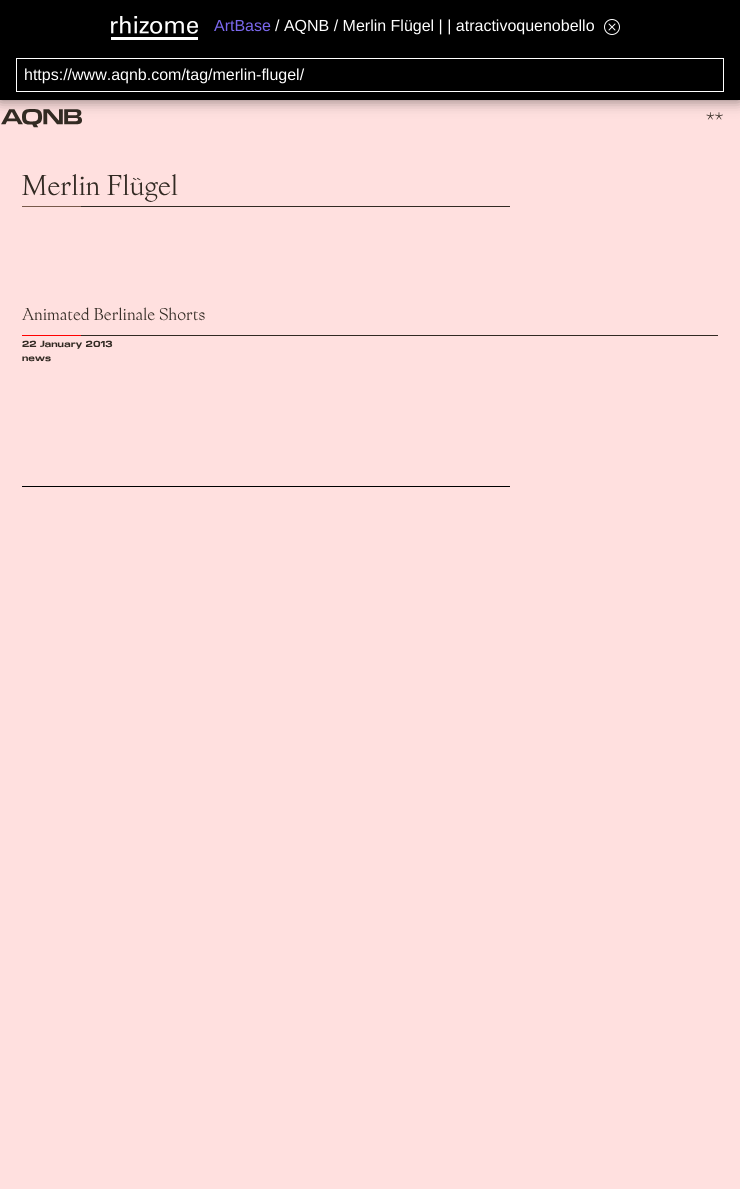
#include <cairo.h>
#include <math.h>
#include <stddef.h>

typedef struct { const char *family; double size; int italic, bold; unsigned color; } style_t;
static cairo_t *ctx;

static void ink(unsigned color) {
    cairo_set_source_rgb(ctx, (color >> 16) / 255.0, (color >> 8 & 255) / 255.0, (color & 255) / 255.0);
}

static void write(double x, double y, const char *s, const style_t *st) {
    cairo_select_font_face(ctx, st->family, st->italic ? CAIRO_FONT_SLANT_ITALIC : CAIRO_FONT_SLANT_NORMAL,
        st->bold ? CAIRO_FONT_WEIGHT_BOLD : CAIRO_FONT_WEIGHT_NORMAL);
    cairo_set_font_size(ctx, st->size);
    ink(st->color);
    cairo_move_to(ctx, x, y);
    cairo_show_text(ctx, s);
}

static void block(double x, double y, double w, double h, unsigned color) {
    ink(color);
    cairo_rectangle(ctx, x, y, w, h);
    cairo_fill(ctx);
}

static void round_path(double x, double y, double w, double h, double r) {
    cairo_new_sub_path(ctx);
    cairo_arc(ctx, x + w - r, y + h - r, r, 0, M_PI / 2);
    cairo_arc(ctx, x + r, y + h - r, r, M_PI / 2, M_PI);
    cairo_arc(ctx, x + r, y + r, r, M_PI, 1.5 * M_PI);
    cairo_arc(ctx, x + w - r, y + r, r, 1.5 * M_PI, 2 * M_PI);
    cairo_close_path(ctx);
}

static void blur_box(double x, double y, double w, double h, double r, double blur, double alpha) {
    cairo_push_group_with_content(ctx, CAIRO_CONTENT_ALPHA);
    cairo_set_operator(ctx, CAIRO_OPERATOR_SOURCE);
    for (int i = 15; i >= -15 && fmin(w, h) + blur * i / 3 > 0; i -= 2) {
        double e = blur * i / 6;
        cairo_set_source_rgba(ctx, 0, 0, 0, alpha * erfc((i - 1) / 8.5) / 2);
        round_path(x - e, y - e, w + 2 * e, h + 2 * e, fmax(0, fmin(r + e + blur * .6, fmin(w, h) / 2 + e)));
        cairo_fill(ctx);
    }
    cairo_pattern_t *soft = cairo_pop_group(ctx);
    cairo_mask(ctx, soft);
    cairo_pattern_destroy(soft);
}

static void paste(const char *path, double x, double y, double w, double h) {
    cairo_surface_t *image = cairo_image_surface_create_from_png(path);
    cairo_save(ctx);
    cairo_set_source_surface(ctx, image, x, y);
    cairo_rectangle(ctx, x, y, w, h);
    cairo_fill(ctx);
    cairo_restore(ctx);
    cairo_surface_destroy(image);
}

static const style_t s1 = {"Liberation Sans", 16, 0, 0, 0x7b68ee};
static const style_t s2 = {"Liberation Sans", 16, 0, 0, 0xffffff};

int main(void) {
    cairo_surface_t *surface = cairo_image_surface_create(CAIRO_FORMAT_RGB24, 740, 1189);
    ctx = cairo_create(surface);
    cairo_font_options_t *options = cairo_font_options_create();
    cairo_font_options_set_hint_metrics(options, CAIRO_HINT_METRICS_OFF);
    cairo_font_options_set_hint_style(options, CAIRO_HINT_STYLE_NONE);
    cairo_set_font_options(ctx, options);
    cairo_set_miter_limit(ctx, 4);
    ink(0xffffff);
    cairo_paint(ctx);
    paste("pic3.png", 0, 100, 740, 1089);
    ink(0x000000);
    blur_box(0, 0, 740, 100, 0, 7.5, 0.5);
    block(0, 0, 740, 100, 0x000000);
    paste("pic1.png", 111, 16, 87, 24);
    write(214, 31, "ArtBase", &s1);
    write(275, 31, "/ AQNB / Merlin Flügel | | atractivoquenobello", &s2);
    paste("pic2.png", 604, 19, 16, 16);
    cairo_rectangle(ctx, 16.5, 58.5, 707, 33);
    cairo_set_line_width(ctx, 1);
    cairo_stroke(ctx);
    write(24, 80, "https://www.aqnb.com/tag/merlin-flugel/", &s2);
    cairo_surface_write_to_png(surface, "screenshot.png");
    cairo_font_options_destroy(options);
    cairo_destroy(ctx);
    cairo_surface_destroy(surface);
    return 0;
}
